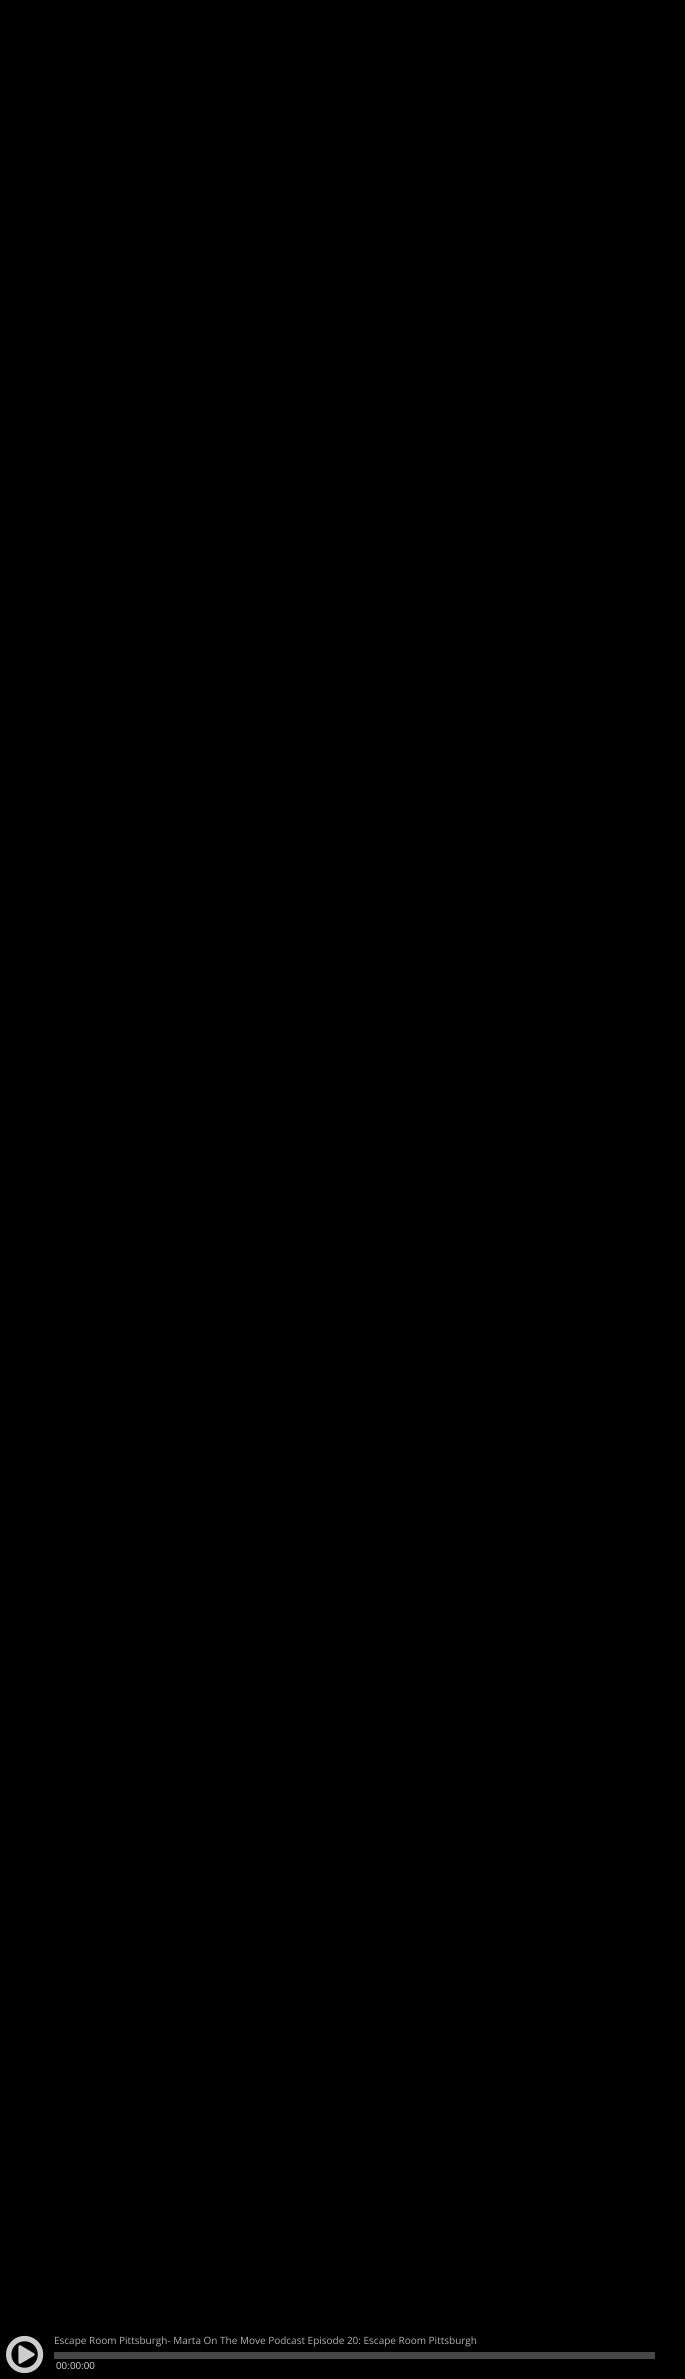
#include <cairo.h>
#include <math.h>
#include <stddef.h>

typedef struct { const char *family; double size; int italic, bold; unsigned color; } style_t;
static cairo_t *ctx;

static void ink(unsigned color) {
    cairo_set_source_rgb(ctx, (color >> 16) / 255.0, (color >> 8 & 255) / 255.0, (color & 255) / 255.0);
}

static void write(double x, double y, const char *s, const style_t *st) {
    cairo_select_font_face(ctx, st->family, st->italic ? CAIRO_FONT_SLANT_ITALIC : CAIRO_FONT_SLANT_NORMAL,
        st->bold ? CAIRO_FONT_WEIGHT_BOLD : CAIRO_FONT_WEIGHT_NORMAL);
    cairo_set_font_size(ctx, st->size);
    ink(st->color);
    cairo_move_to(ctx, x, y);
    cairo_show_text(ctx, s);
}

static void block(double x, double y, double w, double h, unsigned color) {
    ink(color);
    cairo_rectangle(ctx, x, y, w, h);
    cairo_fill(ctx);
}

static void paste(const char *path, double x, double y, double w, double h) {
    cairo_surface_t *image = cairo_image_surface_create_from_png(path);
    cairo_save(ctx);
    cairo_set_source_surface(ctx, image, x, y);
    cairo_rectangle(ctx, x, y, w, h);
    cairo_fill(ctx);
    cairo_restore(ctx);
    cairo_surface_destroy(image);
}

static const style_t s1 = {"Open Sans", 10, 0, 0, 0xb0b0b0};
static const style_t s2 = {"Liberation Sans", 10, 0, 0, 0xcccccc};

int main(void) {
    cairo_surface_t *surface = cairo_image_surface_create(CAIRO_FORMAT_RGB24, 685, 2379);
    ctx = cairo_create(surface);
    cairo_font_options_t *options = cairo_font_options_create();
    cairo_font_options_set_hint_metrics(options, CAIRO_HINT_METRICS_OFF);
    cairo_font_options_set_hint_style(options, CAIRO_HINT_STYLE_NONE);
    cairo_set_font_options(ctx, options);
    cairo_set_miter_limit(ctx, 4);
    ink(0x000000);
    cairo_paint(ctx);
    paste("pic1.png", 6, 2335, 38, 38);
    write(54, 2344, "Escape Room Pittsburgh- Marta On The Move Podcast Episode 20: Escape Room Pittsburgh", &s1);
    block(54, 2352, 601, 7, 0x464646);
    write(56, 2369, "00:00:00", &s2);
    cairo_surface_write_to_png(surface, "screenshot.png");
    cairo_font_options_destroy(options);
    cairo_destroy(ctx);
    cairo_surface_destroy(surface);
    return 0;
}
